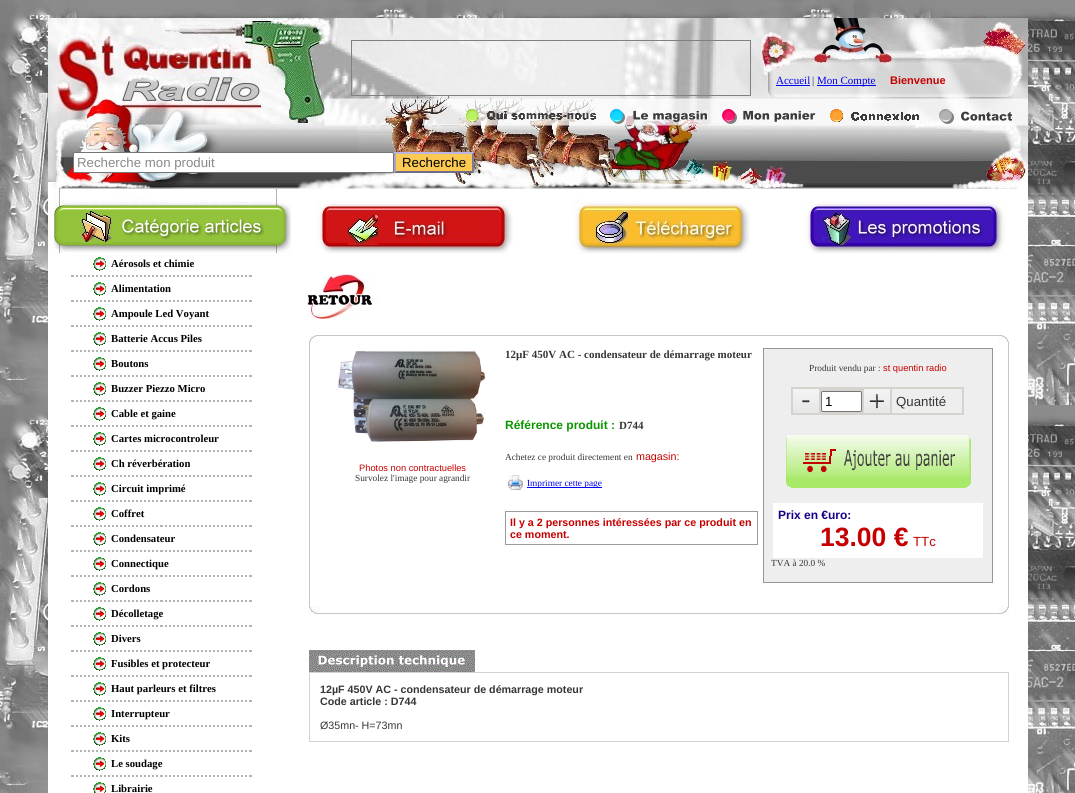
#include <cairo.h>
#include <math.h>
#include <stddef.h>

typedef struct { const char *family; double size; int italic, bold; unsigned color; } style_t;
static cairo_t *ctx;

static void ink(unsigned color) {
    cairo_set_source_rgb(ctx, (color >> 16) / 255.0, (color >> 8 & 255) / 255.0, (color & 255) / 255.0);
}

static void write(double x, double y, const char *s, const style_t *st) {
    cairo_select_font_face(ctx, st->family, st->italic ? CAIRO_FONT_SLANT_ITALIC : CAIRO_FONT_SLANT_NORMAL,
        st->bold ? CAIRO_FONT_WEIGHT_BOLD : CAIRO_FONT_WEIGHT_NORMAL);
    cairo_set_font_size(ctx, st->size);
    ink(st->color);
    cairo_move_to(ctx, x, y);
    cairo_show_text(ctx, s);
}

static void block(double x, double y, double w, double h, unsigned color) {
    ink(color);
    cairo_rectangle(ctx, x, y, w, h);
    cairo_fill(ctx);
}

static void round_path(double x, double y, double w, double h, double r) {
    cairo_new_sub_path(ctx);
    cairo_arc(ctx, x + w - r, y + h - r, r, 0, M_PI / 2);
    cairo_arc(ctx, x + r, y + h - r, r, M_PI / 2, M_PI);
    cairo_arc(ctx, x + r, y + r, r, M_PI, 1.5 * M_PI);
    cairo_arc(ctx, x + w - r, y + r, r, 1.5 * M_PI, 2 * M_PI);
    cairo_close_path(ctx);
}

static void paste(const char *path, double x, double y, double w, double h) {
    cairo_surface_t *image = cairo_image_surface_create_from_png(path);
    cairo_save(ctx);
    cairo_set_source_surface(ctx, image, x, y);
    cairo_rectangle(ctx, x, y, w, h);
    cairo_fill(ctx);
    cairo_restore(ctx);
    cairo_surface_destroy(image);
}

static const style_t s1 = {"Liberation Serif", 11, 0, 0, 0x0000ee};
static const style_t s2 = {"Liberation Serif", 11, 0, 0, 0x363636};
static const style_t s3 = {"Liberation Sans", 11, 0, 1, 0xc60000};
static const style_t s4 = {"Liberation Sans", 13.25, 0, 0, 0x898989};
static const style_t s5 = {"Liberation Sans", 13.25, 0, 0, 0x000000};
static const style_t s6 = {"Liberation Serif", 10.7, 0, 1, 0x000000};
static const style_t s7 = {"Liberation Sans", 9.3, 0, 0, 0xc60000};
static const style_t s8 = {"Liberation Serif", 9.3, 0, 0, 0x363636};
static const style_t s9 = {"Liberation Serif", 11, 0, 1, 0x363636};
static const style_t s10 = {"Liberation Sans", 12, 0, 1, 0x0a9600};
static const style_t s11 = {"Liberation Sans", 10.7, 0, 0, 0xc60000};
static const style_t s12 = {"Liberation Serif", 9.3, 0, 0, 0x0000ee};
static const style_t s13 = {"Liberation Sans", 10.7, 0, 1, 0xc60000};
static const style_t s14 = {"Liberation Sans", 13.25, 0, 0, 0x363636};
static const style_t s15 = {"Liberation Sans", 12, 0, 1, 0x150185};
static const style_t s16 = {"Liberation Sans", 26.5, 0, 1, 0xc60000};
static const style_t s17 = {"Liberation Sans", 13.25, 0, 0, 0xc60000};
static const style_t s18 = {"Liberation Sans", 10.7, 0, 1, 0x363636};
static const style_t s19 = {"Liberation Sans", 10.7, 0, 0, 0x363636};

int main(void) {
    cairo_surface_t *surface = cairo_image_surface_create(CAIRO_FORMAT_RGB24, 1075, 793);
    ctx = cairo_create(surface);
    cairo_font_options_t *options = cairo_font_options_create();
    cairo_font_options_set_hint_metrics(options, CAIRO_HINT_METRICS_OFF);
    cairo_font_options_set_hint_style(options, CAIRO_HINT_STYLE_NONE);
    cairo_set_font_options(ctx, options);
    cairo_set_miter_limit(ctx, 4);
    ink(0xffffff);
    cairo_paint(ctx);
    paste("pic1.png", 0, 0, 1075, 793);
    block(48, 189, 980, 604, 0xffffff);
    paste("pic2.png", 48, 18, 980, 171);
    cairo_rectangle(ctx, 351.5, 40.5, 399, 55);
    ink(0x808080);
    cairo_set_line_width(ctx, 1);
    cairo_stroke(ctx);
    write(776, 84, "Accueil", &s1);
    block(776, 85, 34, 1, 0x0000ee);
    write(812, 84, "|", &s2);
    block(817, 85, 59, 1, 0x0000ee);
    write(817, 84, "Mon Compte", &s1);
    write(890, 84, "Bienvenue", &s3);
    paste("pic3.png", 466, 109, 130, 13);
    paste("pic4.png", 610, 109, 98, 15);
    paste("pic5.png", 722, 109, 94, 15);
    paste("pic6.png", 830, 109, 89, 13);
    paste("pic7.png", 939, 109, 74, 15);
    ink(0xffffff);
    round_path(73.5, 152.5, 320, 20, 1.5);
    cairo_fill_preserve(ctx);
    ink(0x767676);
    cairo_stroke(ctx);
    write(77, 167, "Recherche mon produit", &s4);
    block(394, 152, 80, 21, 0xfcc952);
    ink(0xbcb6e2);
    cairo_new_path(ctx);
    cairo_move_to(ctx, 394, 152);
    cairo_line_to(ctx, 474, 152);
    cairo_line_to(ctx, 472, 154);
    cairo_line_to(ctx, 396, 154);
    cairo_close_path(ctx);
    cairo_fill(ctx);
    ink(0x7d7997);
    cairo_new_path(ctx);
    cairo_move_to(ctx, 474, 152);
    cairo_line_to(ctx, 474, 173);
    cairo_line_to(ctx, 472, 171);
    cairo_line_to(ctx, 472, 154);
    cairo_close_path(ctx);
    cairo_fill(ctx);
    ink(0x706c88);
    cairo_new_path(ctx);
    cairo_move_to(ctx, 474, 173);
    cairo_line_to(ctx, 394, 173);
    cairo_line_to(ctx, 396, 171);
    cairo_line_to(ctx, 472, 171);
    cairo_close_path(ctx);
    cairo_fill(ctx);
    ink(0xa8a2cc);
    cairo_new_path(ctx);
    cairo_move_to(ctx, 394, 173);
    cairo_line_to(ctx, 394, 152);
    cairo_line_to(ctx, 396, 154);
    cairo_line_to(ctx, 396, 171);
    cairo_close_path(ctx);
    cairo_fill(ctx);
    write(402, 167, "Recherche", &s5);
    paste("pic8.png", 54, 189, 237, 64);
    paste("pic9.png", 93, 257, 13, 14);
    write(111, 267, "Aérosols et chimie", &s6);
    paste("pic10.png", 71, 275, 181, 2);
    paste("pic9.png", 93, 282, 13, 14);
    write(111, 292, "Alimentation", &s6);
    paste("pic10.png", 71, 300, 181, 2);
    paste("pic9.png", 93, 307, 13, 14);
    write(111, 317, "Ampoule Led Voyant", &s6);
    paste("pic10.png", 71, 325, 181, 2);
    paste("pic9.png", 93, 332, 13, 14);
    write(111, 342, "Batterie Accus Piles", &s6);
    paste("pic10.png", 71, 350, 181, 2);
    paste("pic9.png", 93, 357, 13, 14);
    write(111, 367, "Boutons", &s6);
    paste("pic10.png", 71, 375, 181, 2);
    paste("pic9.png", 93, 382, 13, 14);
    write(111, 392, "Buzzer Piezzo Micro", &s6);
    paste("pic10.png", 71, 400, 181, 2);
    paste("pic9.png", 93, 407, 13, 14);
    write(111, 417, "Cable et gaine", &s6);
    paste("pic10.png", 71, 425, 181, 2);
    paste("pic9.png", 93, 432, 13, 14);
    write(111, 442, "Cartes microcontroleur", &s6);
    paste("pic10.png", 71, 450, 181, 2);
    paste("pic9.png", 93, 457, 13, 14);
    write(111, 467, "Ch réverbération", &s6);
    paste("pic10.png", 71, 475, 181, 2);
    paste("pic9.png", 93, 482, 13, 14);
    write(111, 492, "Circuit imprimé", &s6);
    paste("pic10.png", 71, 500, 181, 2);
    paste("pic9.png", 93, 507, 13, 14);
    write(111, 517, "Coffret", &s6);
    paste("pic10.png", 71, 525, 181, 2);
    paste("pic9.png", 93, 532, 13, 14);
    write(111, 542, "Condensateur", &s6);
    paste("pic10.png", 71, 550, 181, 2);
    paste("pic9.png", 93, 557, 13, 14);
    write(111, 567, "Connectique", &s6);
    paste("pic10.png", 71, 575, 181, 2);
    paste("pic9.png", 93, 582, 13, 14);
    write(111, 592, "Cordons", &s6);
    paste("pic10.png", 71, 600, 181, 2);
    paste("pic9.png", 93, 607, 13, 14);
    write(111, 617, "Décolletage", &s6);
    paste("pic10.png", 71, 625, 181, 2);
    paste("pic9.png", 93, 632, 13, 14);
    write(111, 642, "Divers", &s6);
    paste("pic10.png", 71, 650, 181, 2);
    paste("pic9.png", 93, 657, 13, 14);
    write(111, 667, "Fusibles et protecteur", &s6);
    paste("pic10.png", 71, 675, 181, 2);
    paste("pic9.png", 93, 682, 13, 14);
    write(111, 692, "Haut parleurs et filtres", &s6);
    paste("pic10.png", 71, 700, 181, 2);
    paste("pic9.png", 93, 707, 13, 14);
    write(111, 717, "Interrupteur", &s6);
    paste("pic10.png", 71, 725, 181, 2);
    paste("pic9.png", 93, 732, 13, 14);
    write(111, 742, "Kits", &s6);
    paste("pic10.png", 71, 750, 181, 2);
    paste("pic9.png", 93, 757, 13, 14);
    write(111, 767, "Le soudage", &s6);
    paste("pic10.png", 71, 775, 181, 2);
    paste("pic11.png", 93, 782, 13, 11);
    write(111, 792, "Librairie", &s6);
    paste("pic12.png", 315, 199, 198, 55);
    paste("pic13.png", 572, 199, 178, 55);
    paste("pic14.png", 803, 199, 205, 55);
    paste("pic15.png", 307, 274, 71, 45);
    paste("pic16.png", 309, 335, 11, 8);
    block(320, 335, 678, 1, 0xc7c7c7);
    paste("pic17.png", 998, 335, 11, 8);
    block(309, 343, 1, 263, 0xc7c7c7);
    paste("pic18.png", 338, 351, 148, 91);
    write(359, 471, "Photos non contractuelles", &s7);
    write(355, 481, "Survolez l'image pour agrandir", &s8);
    write(505, 358, "12µF 450V AC - condensateur de démarrage moteur", &s9);
    write(505, 429, "Référence produit :", &s10);
    write(619, 429, "D744", &s9);
    write(505, 460, "Achetez ce produit directement en", &s8);
    write(636, 460, "magasin:", &s11);
    paste("pic19.png", 508, 475, 15, 15);
    block(527, 487, 75, 1, 0x0000ee);
    write(527, 486, "Imprimer cette page", &s12);
    cairo_rectangle(ctx, 505.5, 511.5, 252, 33);
    ink(0x9b9b9b);
    cairo_stroke(ctx);
    write(510, 526, "Il y a 2 personnes intéressées par ce produit en", &s13);
    write(510, 538, "ce moment.", &s13);
    block(763, 348, 230, 235, 0x979595);
    block(764, 349, 228, 233, 0xeeeeee);
    write(809, 371, "Produit vendu par :", &s8);
    write(883, 371, "st quentin radio", &s7);
    block(791, 387, 173, 28, 0xd6d3ce);
    paste("pic20.png", 793, 389, 26, 24);
    ink(0xffffff);
    round_path(821.5, 391.5, 40, 20, 1.5);
    cairo_fill_preserve(ctx);
    ink(0x767676);
    cairo_stroke(ctx);
    write(825, 406, "1", &s5);
    paste("pic21.png", 864, 389, 26, 24);
    block(892, 389, 70, 24, 0xeeeeee);
    write(896, 406, "Quantité", &s14);
    paste("pic22.png", 786, 435, 185, 53);
    block(773, 503, 210, 55, 0xffffff);
    write(778, 519, "Prix en €uro:", &s15);
    write(820, 546, "13.00 €", &s16);
    write(913, 546, "TTc", &s17);
    write(771, 566, "TVA à 20.0 %", &s8);
    block(1008, 343, 1, 263, 0xc7c7c7);
    paste("pic23.png", 309, 606, 11, 8);
    paste("pic24.png", 998, 606, 11, 8);
    block(320, 613, 678, 1, 0xc7c7c7);
    paste("pic25.png", 309, 650, 166, 22);
    block(309, 672, 700, 70, 0xd6d3ce);
    block(310, 673, 698, 68, 0xffffff);
    write(320, 693, "12µF 450V AC - condensateur de démarrage moteur", &s18);
    write(320, 705, "Code article : D744", &s18);
    write(320, 729, "Ø35mn- H=73mn", &s19);
    cairo_surface_write_to_png(surface, "screenshot.png");
    cairo_font_options_destroy(options);
    cairo_destroy(ctx);
    cairo_surface_destroy(surface);
    return 0;
}
